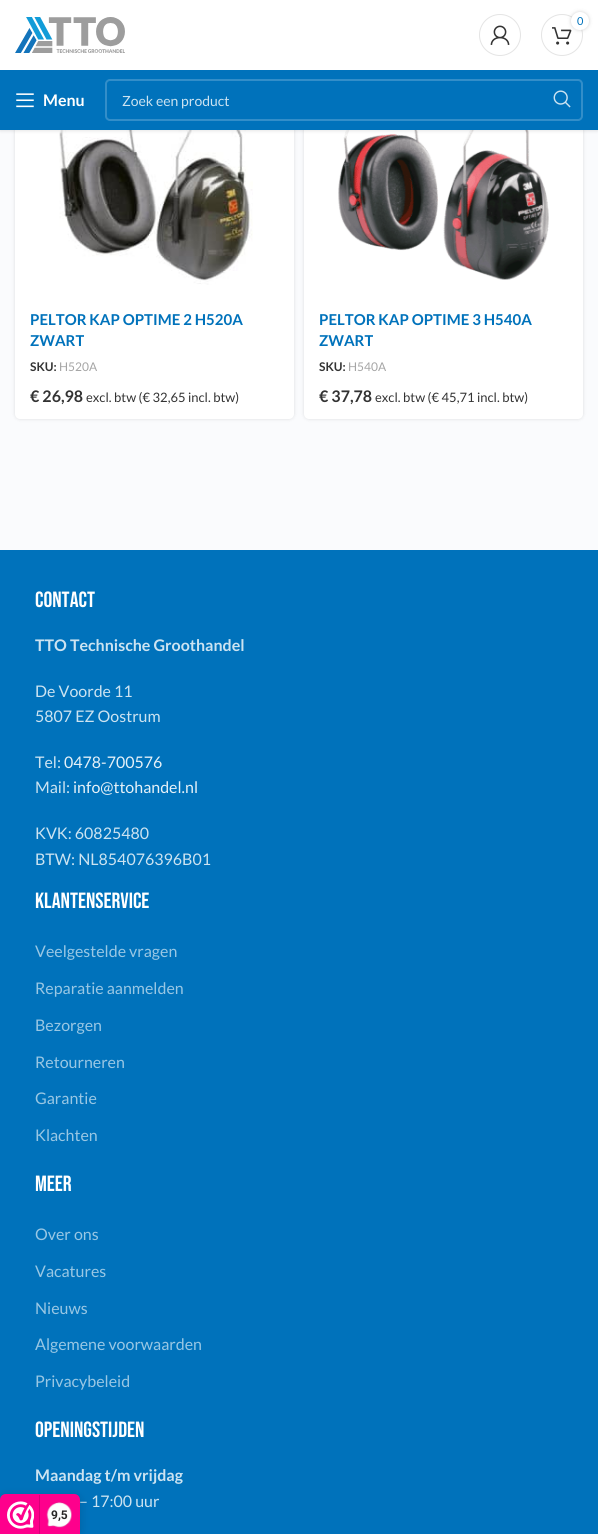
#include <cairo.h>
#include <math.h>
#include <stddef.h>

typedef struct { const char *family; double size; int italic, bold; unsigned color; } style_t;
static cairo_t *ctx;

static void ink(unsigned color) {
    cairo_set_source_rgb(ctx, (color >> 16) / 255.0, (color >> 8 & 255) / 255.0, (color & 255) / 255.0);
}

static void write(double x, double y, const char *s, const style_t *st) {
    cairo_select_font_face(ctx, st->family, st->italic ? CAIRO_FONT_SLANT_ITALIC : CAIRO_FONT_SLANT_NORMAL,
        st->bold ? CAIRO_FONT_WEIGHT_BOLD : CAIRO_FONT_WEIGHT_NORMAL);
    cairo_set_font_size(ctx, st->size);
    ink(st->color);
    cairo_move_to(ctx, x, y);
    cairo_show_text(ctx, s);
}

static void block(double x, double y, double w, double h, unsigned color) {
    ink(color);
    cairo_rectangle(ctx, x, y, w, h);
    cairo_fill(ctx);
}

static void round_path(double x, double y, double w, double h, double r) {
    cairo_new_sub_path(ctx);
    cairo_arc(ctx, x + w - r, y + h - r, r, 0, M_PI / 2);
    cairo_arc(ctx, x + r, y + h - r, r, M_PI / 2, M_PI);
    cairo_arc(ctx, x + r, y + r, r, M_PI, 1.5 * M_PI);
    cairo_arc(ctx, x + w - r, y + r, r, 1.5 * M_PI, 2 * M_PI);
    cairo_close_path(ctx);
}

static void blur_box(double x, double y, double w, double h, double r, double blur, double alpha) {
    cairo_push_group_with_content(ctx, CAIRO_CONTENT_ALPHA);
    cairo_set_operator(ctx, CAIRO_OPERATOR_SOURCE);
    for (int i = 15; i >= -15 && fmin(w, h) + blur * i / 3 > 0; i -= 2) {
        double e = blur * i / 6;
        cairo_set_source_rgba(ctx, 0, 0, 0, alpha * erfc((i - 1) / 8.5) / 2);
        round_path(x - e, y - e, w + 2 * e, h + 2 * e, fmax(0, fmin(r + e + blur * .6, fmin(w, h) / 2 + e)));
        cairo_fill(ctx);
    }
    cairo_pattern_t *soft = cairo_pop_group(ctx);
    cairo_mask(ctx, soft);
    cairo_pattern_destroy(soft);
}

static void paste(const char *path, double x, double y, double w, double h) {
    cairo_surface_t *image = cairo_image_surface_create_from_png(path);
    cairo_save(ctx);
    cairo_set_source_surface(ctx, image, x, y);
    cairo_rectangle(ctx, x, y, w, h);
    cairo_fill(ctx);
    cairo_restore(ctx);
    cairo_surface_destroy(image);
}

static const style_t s1 = {"Lato", 11, 0, 0, 0x0072bb};
static const style_t s2 = {"Lato", 16, 0, 1, 0xffffff};
static const style_t s3 = {"Lato", 14, 0, 0, 0xcce3f1};
static const style_t s4 = {"Lato", 15, 0, 1, 0x0072bb};
static const style_t s5 = {"Lato", 12, 0, 1, 0x333333};
static const style_t s6 = {"Lato", 12, 0, 0, 0xa5a5a5};
static const style_t s7 = {"Lato", 16, 0, 1, 0x333333};
static const style_t s8 = {"Lato", 13, 0, 0, 0x333333};
static const style_t s9 = {"Bebas Neue", 22, 0, 0, 0xffffff};
static const style_t s10 = {"Lato", 16, 0, 1, 0xcce3f1};
static const style_t s11 = {"Lato", 16, 0, 0, 0xcce3f1};
static const style_t s12 = {"Lato", 16, 0, 0, 0xe6f1f8};
static const style_t s13 = {"Lato", 16, 0, 0, 0x99c7e4};
static const style_t s14 = {"Roboto", 12, 0, 1, 0x272626};

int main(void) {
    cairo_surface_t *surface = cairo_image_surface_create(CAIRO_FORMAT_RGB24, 598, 1534);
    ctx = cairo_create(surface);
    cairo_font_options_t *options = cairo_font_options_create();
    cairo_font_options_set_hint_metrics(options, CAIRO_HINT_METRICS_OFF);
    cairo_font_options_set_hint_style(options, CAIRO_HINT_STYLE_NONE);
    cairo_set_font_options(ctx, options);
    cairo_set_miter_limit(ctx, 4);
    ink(0xfafbfd);
    cairo_paint(ctx);
    ink(0x000000);
    blur_box(15, 18, 279, 401, 5, 2, 0.12);
    ink(0xffffff);
    round_path(15, 18, 279, 401, 5);
    cairo_fill(ctx);
    paste("pic6.png", 59, 130, 194, 155);
    ink(0x000000);
    blur_box(304, 18, 279, 401, 5, 2, 0.12);
    ink(0xffffff);
    round_path(304, 18, 279, 401, 5);
    cairo_fill(ctx);
    paste("pic7.png", 338, 130, 211, 150);
    ink(0x000000);
    blur_box(0, 1, 598, 130, 0, 1.5, 0.1);
    block(0, 0, 598, 70, 0xffffff);
    paste("pic1.png", 15, 17, 110, 36);
    cairo_arc(ctx, 500, 35, 20.5, 0, 2 * M_PI);
    ink(0xe4e4e4);
    cairo_set_line_width(ctx, 1);
    cairo_stroke(ctx);
    paste("pic2.png", 490, 25, 20, 20);
    cairo_arc(ctx, 562, 35, 20.5, 0, 2 * M_PI);
    cairo_stroke(ctx);
    paste("pic3.png", 552, 27, 20, 18);
    ink(0x000000);
    blur_box(571, 12, 18, 18, 9, 2, 0.17);
    ink(0xffffff);
    cairo_arc(ctx, 580, 21, 9, 0, 2 * M_PI);
    cairo_fill(ctx);
    write(577, 25, "0", &s1);
    block(0, 70, 598, 60, 0x0072bb);
    paste("pic4.png", 16, 93, 18, 15);
    write(43, 106, "Menu", &s2);
    round_path(106, 80, 476, 40, 4);
    ink(0x338ec9);
    cairo_set_line_width(ctx, 2);
    cairo_stroke(ctx);
    write(122, 106, "Zoek een product", &s3);
    paste("pic5.png", 553, 90, 18, 18);
    write(30, 325, "PELTOR KAP OPTIME 2 H520A", &s4);
    write(30, 346, "ZWART", &s4);
    write(30, 371, "SKU:", &s5);
    write(59, 371, "H520A", &s6);
    write(30, 402, "€ 26,98", &s7);
    write(86, 402, "excl. btw (€ 32,65 incl. btw)", &s8);
    write(319, 325, "PELTOR KAP OPTIME 3 H540A", &s4);
    write(319, 346, "ZWART", &s4);
    write(319, 371, "SKU:", &s5);
    write(348, 371, "H540A", &s6);
    write(319, 402, "€ 37,78", &s7);
    write(375, 402, "excl. btw (€ 45,71 incl. btw)", &s8);
    block(0, 550, 598, 984, 0x0072bb);
    write(35, 607, "Contact", &s9);
    write(35, 651, "TTO Technische Groothandel", &s10);
    write(35, 697, "De Voorde 11", &s11);
    write(35, 722, "5807 EZ Oostrum", &s11);
    write(35, 768, "Tel:", &s11);
    write(64, 768, "0478-700576", &s12);
    write(35, 793, "Mail:", &s11);
    write(73, 793, "info@ttohandel.nl", &s12);
    write(35, 839, "KVK: 60825480", &s11);
    write(35, 865, "BTW: NL854076396B01", &s11);
    write(35, 908, "Klantenservice", &s9);
    write(35, 957, "Veelgestelde vragen", &s13);
    write(35, 994, "Reparatie aanmelden", &s13);
    write(35, 1031, "Bezorgen", &s13);
    write(35, 1068, "Retourneren", &s13);
    write(35, 1104, "Garantie", &s13);
    write(35, 1141, "Klachten", &s13);
    write(35, 1191, "Meer", &s9);
    write(35, 1240, "Over ons", &s13);
    write(35, 1277, "Vacatures", &s13);
    write(35, 1314, "Nieuws", &s13);
    write(35, 1350, "Algemene voorwaarden", &s13);
    write(35, 1387, "Privacybeleid", &s13);
    write(35, 1437, "Openingstijden", &s9);
    write(35, 1481, "Maandag t/m vrijdag", &s10);
    write(79, 1507, "– 17:00 uur", &s11);
    ink(0x000000);
    blur_box(0, 1496, 80, 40, 6, 5, 0.15);
    ink(0xfe008c);
    cairo_new_path(ctx);
    cairo_move_to(ctx, 6, 1494);
    cairo_line_to(ctx, 74, 1494);
    cairo_curve_to(ctx, 77.5, 1494, 80, 1496.5, 80, 1500);
    cairo_line_to(ctx, 80, 1534);
    cairo_line_to(ctx, 0, 1534);
    cairo_line_to(ctx, 0, 1500);
    cairo_curve_to(ctx, 0, 1496.5, 2.5, 1494, 6, 1494);
    cairo_close_path(ctx);
    cairo_fill(ctx);
    paste("pic8.png", 7, 1501, 27, 28);
    block(39, 1495, 1, 39, 0xd80077);
    paste("pic9.png", 46, 1502, 26, 26);
    write(51, 1519, "9,5", &s14);
    cairo_surface_write_to_png(surface, "screenshot.png");
    cairo_font_options_destroy(options);
    cairo_destroy(ctx);
    cairo_surface_destroy(surface);
    return 0;
}
